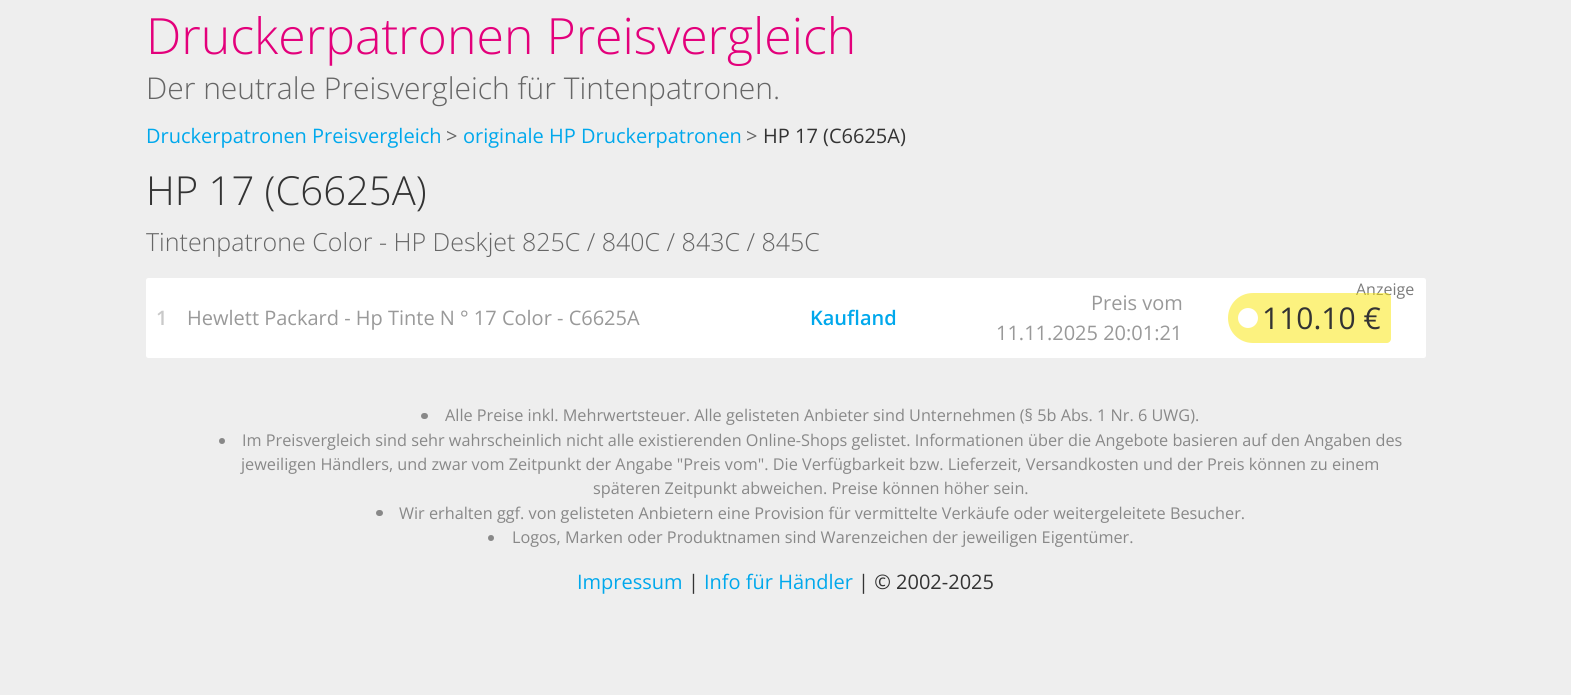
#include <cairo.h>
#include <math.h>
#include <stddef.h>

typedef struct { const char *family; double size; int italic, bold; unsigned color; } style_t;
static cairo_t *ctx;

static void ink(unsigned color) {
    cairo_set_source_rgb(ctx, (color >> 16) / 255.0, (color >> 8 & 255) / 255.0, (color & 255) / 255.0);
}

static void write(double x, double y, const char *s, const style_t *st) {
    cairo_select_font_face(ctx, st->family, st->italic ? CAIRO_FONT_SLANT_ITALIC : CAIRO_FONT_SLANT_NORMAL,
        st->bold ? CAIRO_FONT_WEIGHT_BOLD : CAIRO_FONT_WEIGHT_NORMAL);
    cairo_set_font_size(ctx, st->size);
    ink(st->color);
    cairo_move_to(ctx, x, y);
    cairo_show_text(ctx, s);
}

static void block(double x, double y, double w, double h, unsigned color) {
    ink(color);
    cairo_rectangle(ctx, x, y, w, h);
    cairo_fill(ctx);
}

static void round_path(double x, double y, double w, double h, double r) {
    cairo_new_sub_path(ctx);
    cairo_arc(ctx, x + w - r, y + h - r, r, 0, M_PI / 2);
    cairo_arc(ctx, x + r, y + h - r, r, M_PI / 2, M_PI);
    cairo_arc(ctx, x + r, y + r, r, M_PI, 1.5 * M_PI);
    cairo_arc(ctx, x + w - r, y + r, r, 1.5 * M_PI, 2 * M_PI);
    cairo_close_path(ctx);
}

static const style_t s1 = {"Open Sans Light", 50, 0, 0, 0xe3007b};
static const style_t s2 = {"Open Sans Light", 30, 0, 0, 0x666666};
static const style_t s3 = {"Open Sans", 20, 0, 0, 0x00a8ec};
static const style_t s4 = {"Open Sans", 20, 0, 0, 0x666666};
static const style_t s5 = {"Open Sans", 20, 0, 0, 0x333333};
static const style_t s6 = {"Open Sans Light", 40, 0, 0, 0x333333};
static const style_t s7 = {"Open Sans Light", 25, 0, 0, 0x666666};
static const style_t s8 = {"Open Sans SemiBold", 20, 0, 0, 0xc9c9c9};
static const style_t s9 = {"Open Sans", 20, 0, 0, 0x999999};
static const style_t s10 = {"Open Sans SemiBold", 20, 0, 0, 0x00a8ec};
static const style_t s11 = {"Open Sans", 16, 0, 0, 0x7b7b7b};
static const style_t s12 = {"Open Sans", 30, 0, 0, 0x333333};
static const style_t s13 = {"Open Sans", 16.25, 0, 0, 0x888888};

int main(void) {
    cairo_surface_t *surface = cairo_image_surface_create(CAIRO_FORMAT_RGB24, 1571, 695);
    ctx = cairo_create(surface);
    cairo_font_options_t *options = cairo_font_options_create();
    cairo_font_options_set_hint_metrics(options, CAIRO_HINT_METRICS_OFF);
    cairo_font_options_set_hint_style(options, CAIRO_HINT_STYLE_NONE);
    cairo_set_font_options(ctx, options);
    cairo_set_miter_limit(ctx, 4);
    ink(0xeeeeee);
    cairo_paint(ctx);
    write(146, 54, "Druckerpatronen Preisvergleich", &s1);
    write(146, 99, "Der neutrale Preisvergleich für Tintenpatronen.", &s2);
    write(146, 143, "Druckerpatronen Preisvergleich", &s3);
    write(446, 143, ">", &s4);
    write(463, 143, "originale HP Druckerpatronen", &s3);
    write(746, 143, ">", &s4);
    write(763, 143, "HP 17 (C6625A)", &s5);
    write(146, 205, "HP 17 (C6625A)", &s6);
    write(146, 251, "Tintenpatrone Color - HP Deskjet 825C / 840C / 843C / 845C", &s7);
    ink(0xffffff);
    cairo_new_path(ctx);
    cairo_move_to(ctx, 148.5, 278);
    cairo_line_to(ctx, 178, 278);
    cairo_line_to(ctx, 178, 358);
    cairo_line_to(ctx, 148.5, 358);
    cairo_curve_to(ctx, 147, 358, 146, 357, 146, 355.5);
    cairo_line_to(ctx, 146, 280.5);
    cairo_curve_to(ctx, 146, 279, 147, 278, 148.5, 278);
    cairo_close_path(ctx);
    cairo_fill(ctx);
    write(156, 325, "1", &s8);
    block(178, 278, 1015, 80, 0xffffff);
    write(187, 325, "Hewlett Packard - Hp Tinte N ° 17 Color - C6625A", &s9);
    write(810, 325, "Kaufland", &s10);
    write(1091, 310, "Preis vom", &s9);
    write(996, 340, "11.11.2025 20:01:21", &s9);
    ink(0xffffff);
    cairo_new_path(ctx);
    cairo_move_to(ctx, 1193, 278);
    cairo_line_to(ctx, 1423.5, 278);
    cairo_curve_to(ctx, 1425, 278, 1426, 279, 1426, 280.5);
    cairo_line_to(ctx, 1426, 355.5);
    cairo_curve_to(ctx, 1426, 357, 1425, 358, 1423.5, 358);
    cairo_line_to(ctx, 1193, 358);
    cairo_close_path(ctx);
    cairo_fill(ctx);
    write(1356, 295, "Anzeige", &s11);
    cairo_set_source_rgba(ctx, 0.98, 0.902, 0, 0.5);
    cairo_new_path(ctx);
    cairo_move_to(ctx, 1253, 293);
    cairo_line_to(ctx, 1387, 293);
    cairo_curve_to(ctx, 1389, 293, 1391, 295, 1391, 297);
    cairo_line_to(ctx, 1391, 339);
    cairo_curve_to(ctx, 1391, 341, 1389, 343, 1387, 343);
    cairo_line_to(ctx, 1253, 343);
    cairo_curve_to(ctx, 1239, 343, 1228, 332, 1228, 318);
    cairo_curve_to(ctx, 1228, 304, 1239, 293, 1253, 293);
    cairo_close_path(ctx);
    cairo_fill(ctx);
    ink(0xffffff);
    cairo_arc(ctx, 1248, 318, 10, 0, 2 * M_PI);
    cairo_fill(ctx);
    write(1262, 329, "110.10 €", &s12);
    ink(0x888888);
    round_path(421, 413, 7, 6, 3);
    cairo_fill(ctx);
    write(445, 421, "Alle Preise inkl. Mehrwertsteuer. Alle gelisteten Anbieter sind Unternehmen (§ 5b Abs. 1 Nr. 6 UWG).", &s13);
    cairo_new_path(ctx);
    cairo_arc(ctx, 222, 441, 3, 0, 2 * M_PI);
    cairo_fill(ctx);
    write(242, 446, "Im Preisvergleich sind sehr wahrscheinlich nicht alle existierenden Online-Shops gelistet. Informationen über die Angebote basieren auf den Angaben des", &s13);
    write(241, 470, "jeweiligen Händlers, und zwar vom Zeitpunkt der Angabe \"Preis vom\". Die Verfügbarkeit bzw. Lieferzeit, Versandkosten und der Preis können zu einem", &s13);
    write(593, 494, "späteren Zeitpunkt abweichen. Preise können höher sein.", &s13);
    round_path(376, 510, 7, 6, 3);
    cairo_fill(ctx);
    write(399, 519, "Wir erhalten ggf. von gelisteten Anbietern eine Provision für vermittelte Verkäufe oder weitergeleitete Besucher.", &s13);
    cairo_new_path(ctx);
    cairo_arc(ctx, 491, 538, 3, 0, 2 * M_PI);
    cairo_fill(ctx);
    write(512, 543, "Logos, Marken oder Produktnamen sind Warenzeichen der jeweiligen Eigentümer.", &s13);
    write(577, 589, "Impressum", &s3);
    write(688, 589, "|", &s5);
    write(704, 589, "Info für Händler", &s3);
    write(858, 589, "| © 2002-2025", &s5);
    cairo_surface_write_to_png(surface, "screenshot.png");
    cairo_font_options_destroy(options);
    cairo_destroy(ctx);
    cairo_surface_destroy(surface);
    return 0;
}
